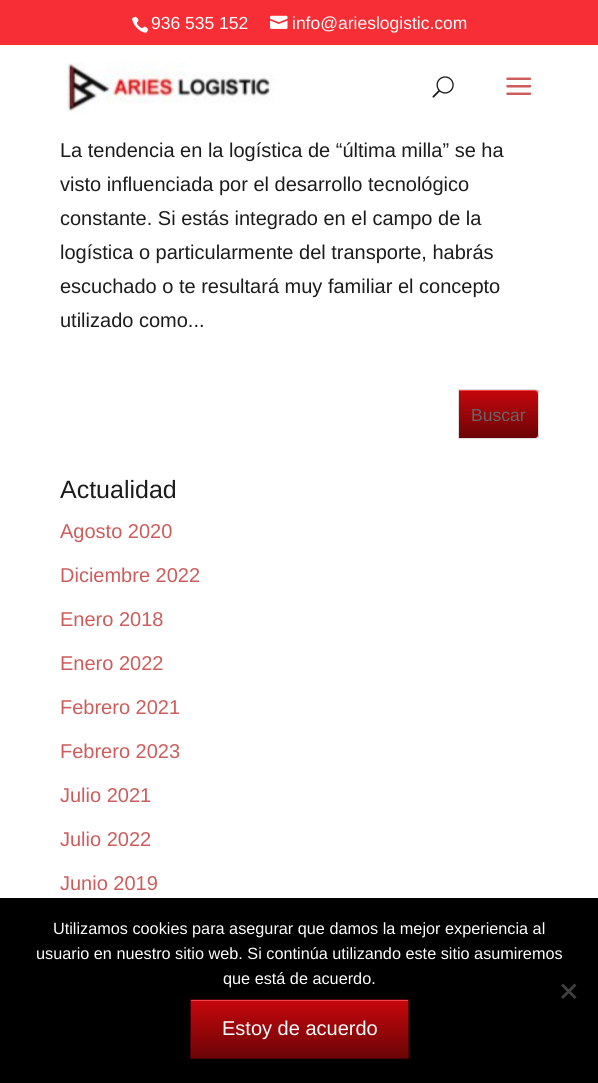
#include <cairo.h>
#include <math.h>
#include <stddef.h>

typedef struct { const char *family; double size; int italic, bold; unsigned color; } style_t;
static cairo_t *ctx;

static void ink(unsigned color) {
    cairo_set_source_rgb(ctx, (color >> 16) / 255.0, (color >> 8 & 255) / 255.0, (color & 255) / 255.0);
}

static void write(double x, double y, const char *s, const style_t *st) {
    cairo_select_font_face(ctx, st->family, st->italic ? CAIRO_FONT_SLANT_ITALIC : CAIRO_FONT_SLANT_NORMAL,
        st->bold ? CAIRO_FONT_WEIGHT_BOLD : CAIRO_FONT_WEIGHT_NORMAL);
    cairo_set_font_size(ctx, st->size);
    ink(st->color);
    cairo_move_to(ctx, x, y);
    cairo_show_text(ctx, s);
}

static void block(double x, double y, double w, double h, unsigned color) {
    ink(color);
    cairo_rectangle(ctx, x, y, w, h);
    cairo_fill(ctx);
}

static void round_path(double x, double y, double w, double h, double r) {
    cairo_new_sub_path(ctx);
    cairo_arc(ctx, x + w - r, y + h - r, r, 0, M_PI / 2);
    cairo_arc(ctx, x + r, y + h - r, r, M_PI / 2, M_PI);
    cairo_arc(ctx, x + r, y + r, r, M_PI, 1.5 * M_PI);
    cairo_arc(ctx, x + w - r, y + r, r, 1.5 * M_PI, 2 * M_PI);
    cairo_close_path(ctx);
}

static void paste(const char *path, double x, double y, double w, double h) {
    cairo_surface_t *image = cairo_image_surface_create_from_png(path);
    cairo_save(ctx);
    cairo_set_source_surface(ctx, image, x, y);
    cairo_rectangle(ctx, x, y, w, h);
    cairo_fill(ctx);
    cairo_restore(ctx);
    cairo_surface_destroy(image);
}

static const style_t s1 = {"Liberation Sans", 17.5, 0, 0, 0xffffff};
static const style_t s2 = {"Liberation Sans", 20, 0, 0, 0x1c1c1c};
static const style_t s3 = {"Liberation Sans", 17.5, 0, 0, 0x666666};
static const style_t s4 = {"Liberation Sans", 25, 0, 0, 0x1c1c1c};
static const style_t s5 = {"Liberation Sans", 20, 0, 0, 0xcd5c5c};
static const style_t s6 = {"Liberation Sans", 16.25, 0, 0, 0xffffff};
static const style_t s7 = {"Liberation Sans", 20, 0, 0, 0xffffff};

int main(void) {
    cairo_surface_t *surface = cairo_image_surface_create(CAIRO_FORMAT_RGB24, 598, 1083);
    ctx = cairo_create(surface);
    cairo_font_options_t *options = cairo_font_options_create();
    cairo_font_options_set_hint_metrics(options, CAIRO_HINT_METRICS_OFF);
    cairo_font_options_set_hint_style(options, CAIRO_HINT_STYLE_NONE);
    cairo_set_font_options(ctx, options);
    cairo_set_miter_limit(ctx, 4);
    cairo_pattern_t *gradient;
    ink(0xffffff);
    cairo_paint(ctx);
    block(0, 0, 598, 45, 0xf72e35);
    paste("pic1.png", 132, 16, 16, 17);
    write(151, 29, "936 535 152", &s1);
    paste("pic2.png", 270, 15, 18, 14);
    write(292, 29, "info@arieslogistic.com", &s1);
    paste("pic3.png", 65, 62, 210, 51);
    paste("pic4.png", 432, 76, 22, 22);
    paste("pic5.png", 506, 77, 26, 18);
    write(60, 157, "La tendencia en la logística de “última milla” se ha", &s2);
    write(60, 191, "visto influenciada por el desarrollo tecnológico", &s2);
    write(60, 225, "constante. Si estás integrado en el campo de la", &s2);
    write(60, 259, "logística o particularmente del transporte, habrás", &s2);
    write(60, 293, "escuchado o te resultará muy familiar el concepto", &s2);
    write(60, 327, "utilizado como...", &s2);
    cairo_save(ctx);
    cairo_new_path(ctx);
    cairo_move_to(ctx, 459, 389);
    cairo_line_to(ctx, 535, 389);
    cairo_curve_to(ctx, 537, 389, 539, 391, 539, 393);
    cairo_line_to(ctx, 539, 435);
    cairo_curve_to(ctx, 539, 437, 537, 439, 535, 439);
    cairo_line_to(ctx, 459, 439);
    cairo_curve_to(ctx, 458.5, 439, 458, 438.5, 458, 438);
    cairo_line_to(ctx, 458, 390);
    cairo_curve_to(ctx, 458, 389.5, 458.5, 389, 459, 389);
    cairo_close_path(ctx);
    cairo_clip(ctx);
    gradient = cairo_pattern_create_linear(498, 390, 498, 438);
    cairo_pattern_add_color_stop_rgba(gradient, 0.05, 0.761, 0.024, 0.047, 1);
    cairo_pattern_add_color_stop_rgba(gradient, 1, 0.42, 0.02, 0.027, 1);
    cairo_set_source(ctx, gradient);
    cairo_pattern_destroy(gradient);
    cairo_rectangle(ctx, 459, 390, 80, 48);
    cairo_fill(ctx);
    cairo_restore(ctx);
    ink(0xf5444a);
    cairo_new_path(ctx);
    cairo_move_to(ctx, 459, 391);
    cairo_line_to(ctx, 535, 391);
    cairo_curve_to(ctx, 536, 391, 538, 392, 538, 394);
    cairo_line_to(ctx, 538, 392);
    cairo_curve_to(ctx, 538, 391, 537, 390, 536, 390);
    cairo_line_to(ctx, 459, 390);
    cairo_close_path(ctx);
    cairo_fill(ctx);
    cairo_new_path(ctx);
    cairo_move_to(ctx, 459, 389.5);
    cairo_line_to(ctx, 535, 389.5);
    cairo_curve_to(ctx, 537, 389.5, 538.5, 391, 538.5, 393);
    cairo_line_to(ctx, 538.5, 435);
    cairo_curve_to(ctx, 538.5, 437, 537, 438.5, 535, 438.5);
    cairo_line_to(ctx, 459, 438.5);
    cairo_curve_to(ctx, 458.5, 438.5, 458.5, 438.5, 458.5, 438);
    cairo_line_to(ctx, 458.5, 390);
    cairo_curve_to(ctx, 458.5, 389.5, 458.5, 389.5, 459, 389.5);
    cairo_close_path(ctx);
    ink(0xdddddd);
    cairo_set_line_width(ctx, 1);
    cairo_stroke(ctx);
    write(471, 421, "Buscar", &s3);
    write(60, 498, "Actualidad", &s4);
    write(60, 538, "Agosto 2020", &s5);
    write(60, 582, "Diciembre 2022", &s5);
    write(60, 626, "Enero 2018", &s5);
    write(60, 670, "Enero 2022", &s5);
    write(60, 714, "Febrero 2021", &s5);
    write(60, 758, "Febrero 2023", &s5);
    write(60, 802, "Julio 2021", &s5);
    write(60, 846, "Julio 2022", &s5);
    write(60, 890, "Junio 2019", &s5);
    block(0, 898, 598, 185, 0x000000);
    write(53, 934, "Utilizamos cookies para asegurar que damos la mejor experiencia al", &s6);
    write(36, 959, "usuario en nuestro sitio web. Si continúa utilizando este sitio asumiremos", &s6);
    write(223, 984, "que está de acuerdo.", &s6);
    ink(0x404040);
    cairo_new_path(ctx);
    cairo_move_to(ctx, 574.5, 983.5);
    cairo_line_to(ctx, 576.5, 985.5);
    cairo_line_to(ctx, 563, 999);
    cairo_line_to(ctx, 561, 997);
    cairo_close_path(ctx);
    cairo_fill(ctx);
    cairo_new_path(ctx);
    cairo_move_to(ctx, 561, 985.5);
    cairo_line_to(ctx, 563, 983.5);
    cairo_line_to(ctx, 576.5, 997);
    cairo_line_to(ctx, 574.5, 999);
    cairo_close_path(ctx);
    cairo_fill(ctx);
    gradient = cairo_pattern_create_linear(299, 1000, 299, 1058);
    cairo_pattern_add_color_stop_rgba(gradient, 0.05, 0.761, 0.024, 0.047, 1);
    cairo_pattern_add_color_stop_rgba(gradient, 1, 0.42, 0.02, 0.027, 1);
    cairo_set_source(ctx, gradient);
    cairo_pattern_destroy(gradient);
    cairo_rectangle(ctx, 191, 1001, 217, 57);
    cairo_fill(ctx);
    block(191, 1000, 217, 1, 0xf5444a);
    round_path(190.5, 999.5, 218, 59, 0.5);
    ink(0x4a0104);
    cairo_stroke(ctx);
    write(222, 1035, "Estoy de acuerdo", &s7);
    cairo_surface_write_to_png(surface, "screenshot.png");
    cairo_font_options_destroy(options);
    cairo_destroy(ctx);
    cairo_surface_destroy(surface);
    return 0;
}
